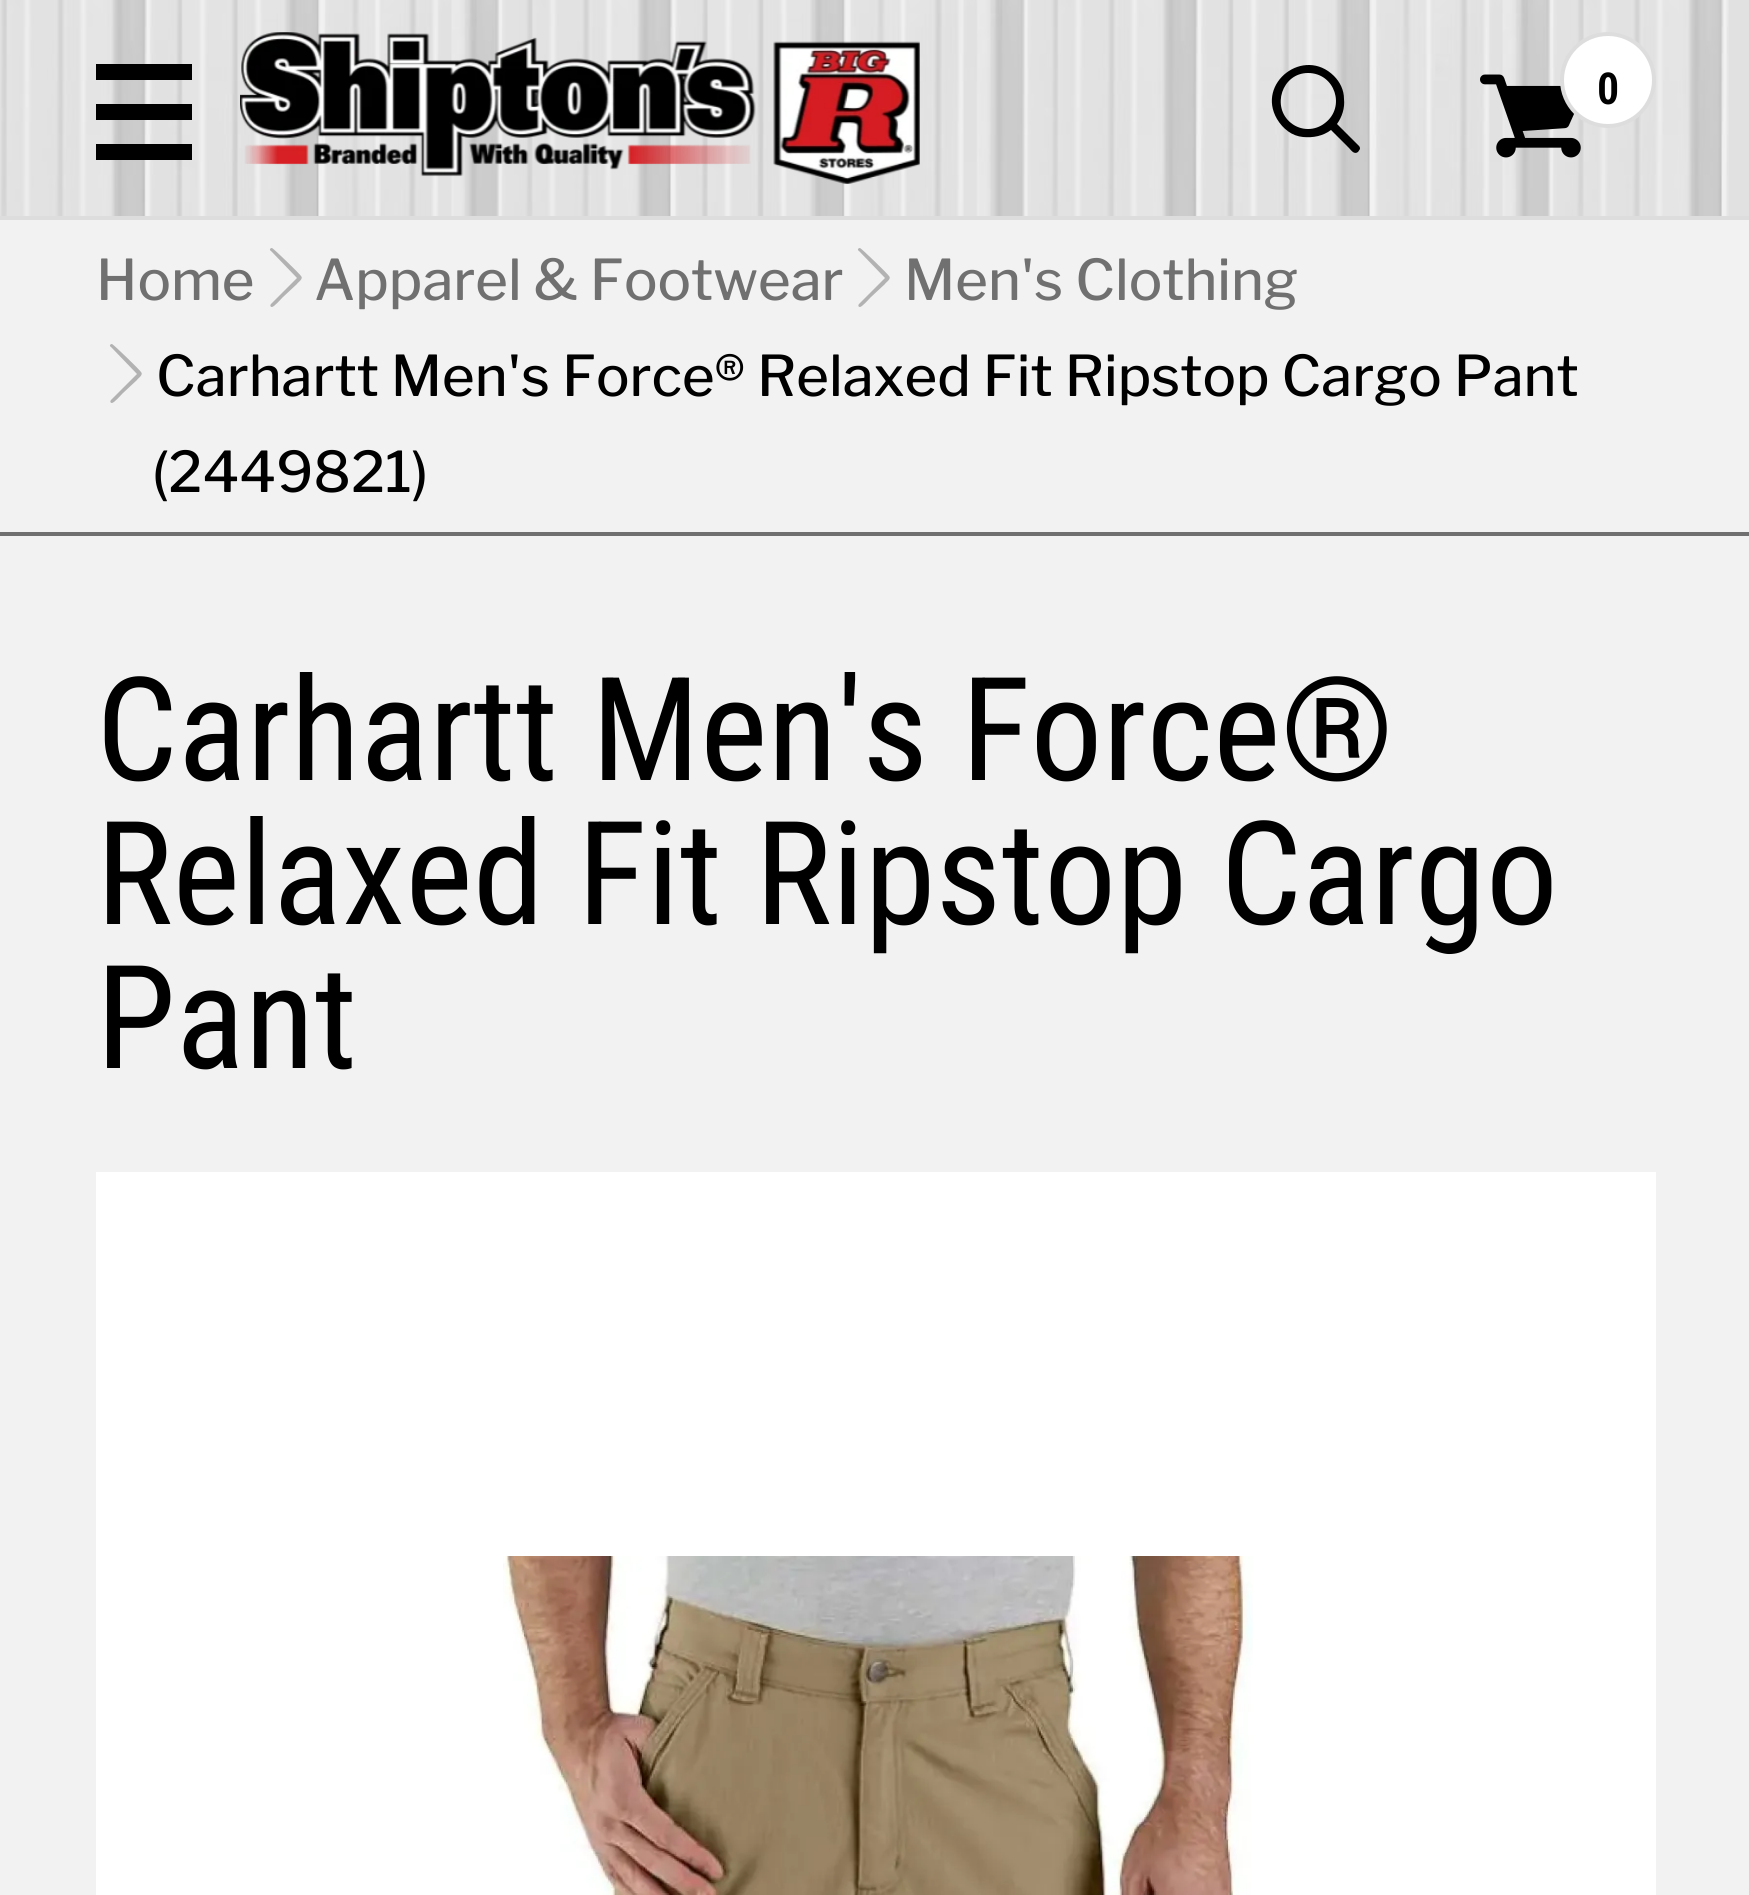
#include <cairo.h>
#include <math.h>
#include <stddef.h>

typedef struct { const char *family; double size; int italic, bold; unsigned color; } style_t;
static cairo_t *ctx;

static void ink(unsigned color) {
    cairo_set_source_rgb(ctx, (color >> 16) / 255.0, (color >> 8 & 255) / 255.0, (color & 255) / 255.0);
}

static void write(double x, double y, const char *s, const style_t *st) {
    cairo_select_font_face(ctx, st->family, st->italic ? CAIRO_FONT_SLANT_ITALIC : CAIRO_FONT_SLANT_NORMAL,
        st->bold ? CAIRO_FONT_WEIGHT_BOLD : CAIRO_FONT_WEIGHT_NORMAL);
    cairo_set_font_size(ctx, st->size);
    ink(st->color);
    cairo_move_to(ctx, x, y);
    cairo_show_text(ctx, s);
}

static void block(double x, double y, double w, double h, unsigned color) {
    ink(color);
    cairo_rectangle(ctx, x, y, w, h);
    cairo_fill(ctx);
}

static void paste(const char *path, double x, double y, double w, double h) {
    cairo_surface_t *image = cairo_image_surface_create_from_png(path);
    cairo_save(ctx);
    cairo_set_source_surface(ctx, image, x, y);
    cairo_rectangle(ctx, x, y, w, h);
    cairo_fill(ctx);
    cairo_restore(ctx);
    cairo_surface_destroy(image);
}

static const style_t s1 = {"Roboto Condensed", 44, 0, 1, 0x000000};
static const style_t s2 = {"Libre Franklin", 56, 0, 0, 0x707070};
static const style_t s3 = {"Libre Franklin", 56, 0, 0, 0x000000};
static const style_t s4 = {"Roboto Condensed", 144, 0, 0, 0x000000};

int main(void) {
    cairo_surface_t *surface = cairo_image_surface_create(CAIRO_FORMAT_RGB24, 1749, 1895);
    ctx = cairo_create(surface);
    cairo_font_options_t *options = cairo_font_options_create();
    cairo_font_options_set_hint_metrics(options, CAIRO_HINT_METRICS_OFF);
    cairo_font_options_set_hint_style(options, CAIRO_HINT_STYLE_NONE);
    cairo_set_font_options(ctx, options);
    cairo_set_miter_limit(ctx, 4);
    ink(0xf2f2f2);
    cairo_paint(ctx);
    block(0, 0, 1749, 216, 0xe1e1e1);
    paste("pic1.png", 1, 0, 1728, 216);
    block(0, 216, 1749, 4, 0xdddddd);
    block(96, 64, 96, 16, 0x000000);
    block(96, 104, 96, 16, 0x000000);
    block(96, 144, 96, 16, 0x000000);
    paste("pic2.png", 240, 32, 680, 152);
    cairo_new_path(ctx);
    cairo_move_to(ctx, 1359, 146);
    cairo_curve_to(ctx, 1360, 147, 1360, 148, 1360, 149);
    cairo_line_to(ctx, 1358, 152);
    cairo_curve_to(ctx, 1354, 155, 1351, 150, 1349, 148);
    cairo_line_to(ctx, 1331, 130);
    cairo_curve_to(ctx, 1323, 136, 1313, 138, 1303, 137);
    cairo_curve_to(ctx, 1292, 136, 1283, 129, 1277, 119);
    cairo_curve_to(ctx, 1256, 83, 1304, 46, 1334, 76);
    cairo_curve_to(ctx, 1340, 82, 1344, 90, 1344, 99);
    cairo_curve_to(ctx, 1345, 108, 1342, 117, 1337, 124);
    cairo_close_path(ctx);
    cairo_move_to(ctx, 1308, 129);
    cairo_curve_to(ctx, 1314, 129, 1320, 127, 1325, 123);
    cairo_curve_to(ctx, 1346, 107, 1335, 73, 1308, 73);
    cairo_curve_to(ctx, 1282, 73, 1271, 107, 1291, 123);
    cairo_curve_to(ctx, 1296, 127, 1302, 129, 1308, 129);
    cairo_close_path(ctx);
    cairo_fill(ctx);
    paste("pic3.png", 1480, 74, 101, 84);
    ink(0xffffff);
    cairo_arc(ctx, 1608, 80, 46, 0, 2 * M_PI);
    cairo_fill_preserve(ctx);
    ink(0xdddddd);
    cairo_set_line_width(ctx, 4);
    cairo_stroke(ctx);
    write(1597, 104, "0", &s1);
    block(0, 532, 1749, 4, 0x707070);
    write(96, 300, "Home", &s2);
    ink(0xb2b2b2);
    cairo_new_path(ctx);
    cairo_move_to(ctx, 271, 304);
    cairo_curve_to(ctx, 270, 305, 270, 307, 272, 307);
    cairo_curve_to(ctx, 274, 307, 281, 299, 283, 297);
    cairo_line_to(ctx, 297, 284);
    cairo_curve_to(ctx, 297, 283, 304, 279, 301, 276);
    cairo_curve_to(ctx, 299, 273, 273, 248, 272, 248);
    cairo_curve_to(ctx, 270, 248, 269, 250, 271, 251);
    cairo_line_to(ctx, 297, 278);
    cairo_close_path(ctx);
    cairo_fill(ctx);
    write(314, 300, "Apparel & Footwear", &s2);
    ink(0xb2b2b2);
    cairo_new_path(ctx);
    cairo_move_to(ctx, 859, 304);
    cairo_curve_to(ctx, 858, 305, 858, 307, 860, 307);
    cairo_curve_to(ctx, 862, 307, 869, 299, 871, 297);
    cairo_line_to(ctx, 885, 284);
    cairo_curve_to(ctx, 885, 283, 892, 279, 889, 276);
    cairo_curve_to(ctx, 887, 273, 861, 248, 860, 248);
    cairo_curve_to(ctx, 858, 248, 857, 250, 859, 251);
    cairo_line_to(ctx, 885, 278);
    cairo_close_path(ctx);
    cairo_fill(ctx);
    write(904, 300, "Men's Clothing", &s2);
    ink(0xb2b2b2);
    cairo_new_path(ctx);
    cairo_move_to(ctx, 111, 400);
    cairo_curve_to(ctx, 110, 401, 110, 403, 112, 403);
    cairo_curve_to(ctx, 114, 403, 121, 395, 123, 393);
    cairo_line_to(ctx, 137, 380);
    cairo_curve_to(ctx, 137, 379, 144, 375, 141, 372);
    cairo_curve_to(ctx, 139, 369, 113, 344, 112, 344);
    cairo_curve_to(ctx, 110, 344, 109, 346, 111, 347);
    cairo_line_to(ctx, 137, 374);
    cairo_close_path(ctx);
    cairo_fill(ctx);
    write(156, 396, "Carhartt Men's Force® Relaxed Fit Ripstop Cargo Pant", &s3);
    write(152, 492, "(2449821)", &s3);
    write(96, 780, "Carhartt Men's Force®", &s4);
    write(96, 924, "Relaxed Fit Ripstop Cargo", &s4);
    write(96, 1068, "Pant", &s4);
    block(96, 1172, 1560, 723, 0xffffff);
    paste("pic4.png", 503, 1556, 750, 339);
    cairo_surface_write_to_png(surface, "screenshot.png");
    cairo_font_options_destroy(options);
    cairo_destroy(ctx);
    cairo_surface_destroy(surface);
    return 0;
}
